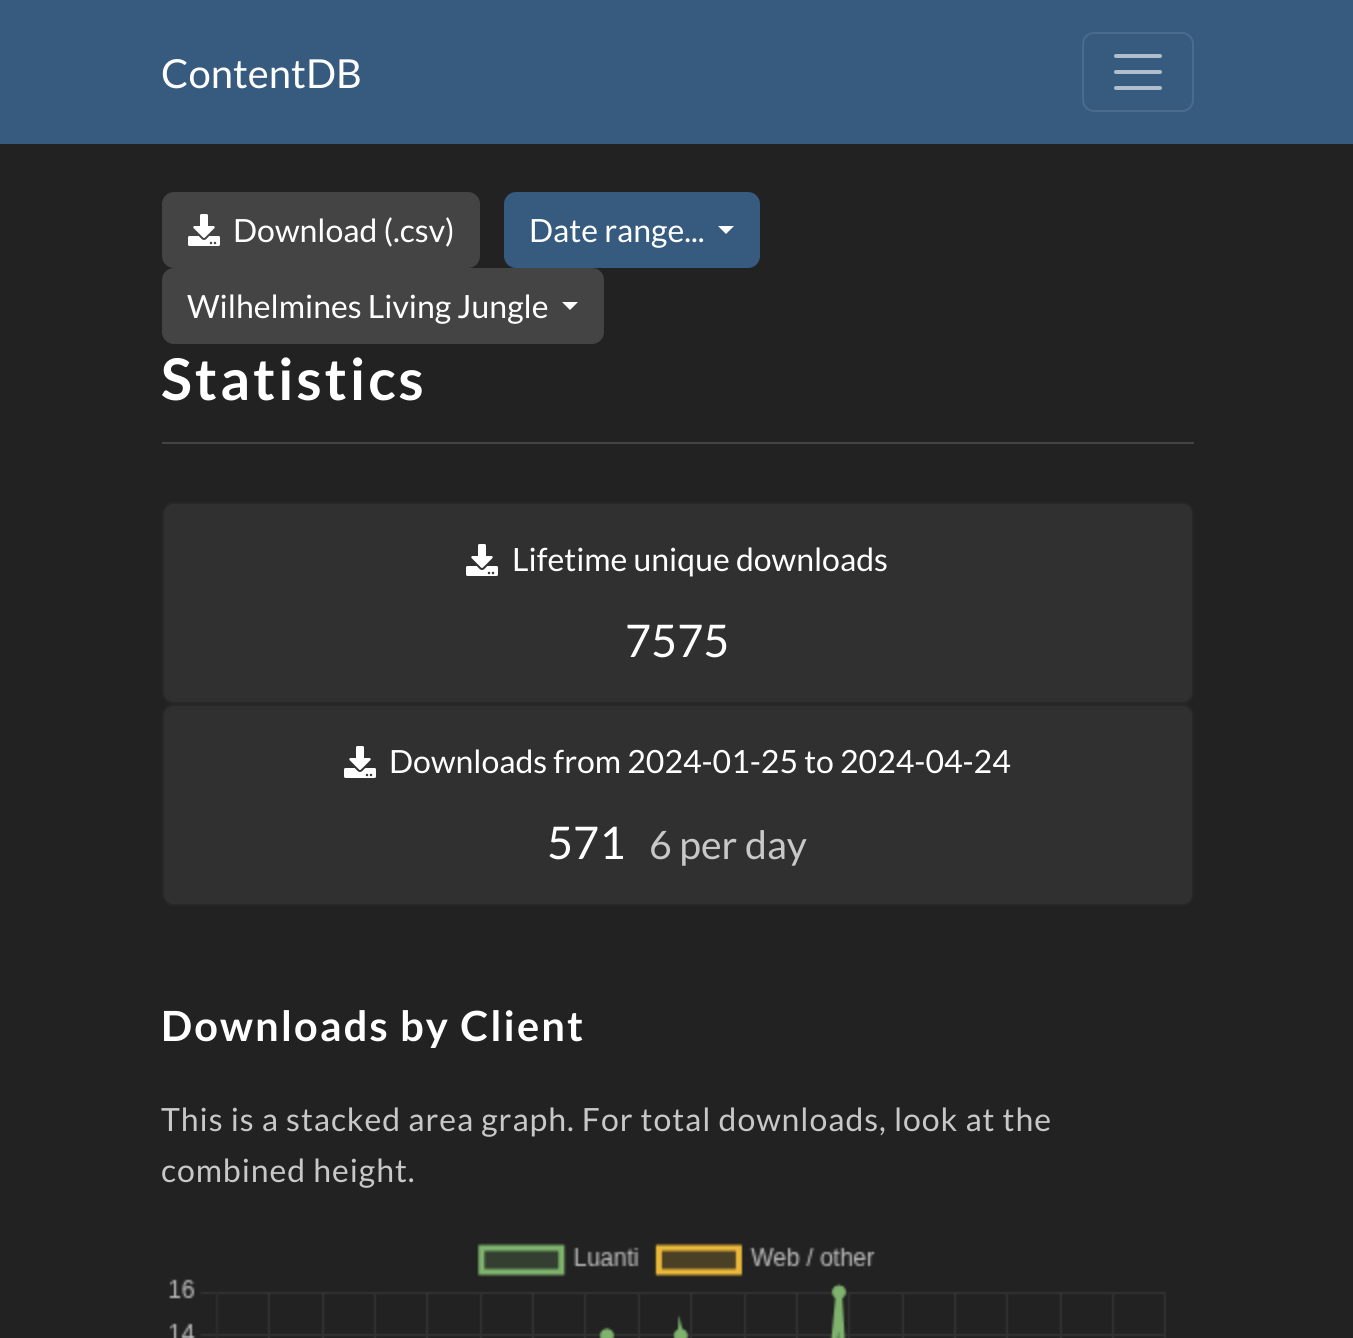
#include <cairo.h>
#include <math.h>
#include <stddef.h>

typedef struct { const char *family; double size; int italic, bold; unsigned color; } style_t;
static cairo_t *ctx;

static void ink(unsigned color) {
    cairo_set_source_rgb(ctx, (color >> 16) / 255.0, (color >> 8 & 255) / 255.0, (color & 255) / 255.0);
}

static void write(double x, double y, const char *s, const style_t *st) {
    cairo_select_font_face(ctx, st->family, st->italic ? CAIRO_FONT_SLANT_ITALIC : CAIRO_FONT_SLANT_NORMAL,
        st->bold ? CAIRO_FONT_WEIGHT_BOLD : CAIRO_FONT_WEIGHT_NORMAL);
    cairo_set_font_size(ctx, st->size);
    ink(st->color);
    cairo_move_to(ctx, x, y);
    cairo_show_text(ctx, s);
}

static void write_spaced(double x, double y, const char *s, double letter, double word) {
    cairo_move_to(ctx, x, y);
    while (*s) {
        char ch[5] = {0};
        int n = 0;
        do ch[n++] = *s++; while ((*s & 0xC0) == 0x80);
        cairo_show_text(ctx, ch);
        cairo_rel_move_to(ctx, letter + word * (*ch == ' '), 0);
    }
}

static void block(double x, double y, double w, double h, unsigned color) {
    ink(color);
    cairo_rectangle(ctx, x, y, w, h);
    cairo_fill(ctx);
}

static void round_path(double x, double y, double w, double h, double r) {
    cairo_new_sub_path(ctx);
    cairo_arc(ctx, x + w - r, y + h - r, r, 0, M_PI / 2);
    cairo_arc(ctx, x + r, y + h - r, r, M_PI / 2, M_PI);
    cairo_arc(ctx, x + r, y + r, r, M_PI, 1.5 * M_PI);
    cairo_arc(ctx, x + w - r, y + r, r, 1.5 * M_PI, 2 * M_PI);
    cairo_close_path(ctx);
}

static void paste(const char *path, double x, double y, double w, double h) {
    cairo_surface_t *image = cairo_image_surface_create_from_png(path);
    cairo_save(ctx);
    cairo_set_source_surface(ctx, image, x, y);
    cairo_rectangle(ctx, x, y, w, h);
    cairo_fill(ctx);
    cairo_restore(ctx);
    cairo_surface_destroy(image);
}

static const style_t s1 = {"Lato", 40, 0, 0, 0xffffff};
static const style_t s2 = {"Lato", 32, 0, 0, 0xffffff};
static const style_t s3 = {"Lato", 45, 0, 0, 0xffffff};
static const style_t s4 = {"Lato", 39.25, 0, 0, 0xc8c8c8};

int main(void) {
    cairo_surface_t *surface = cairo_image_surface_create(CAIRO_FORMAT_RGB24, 1353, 1338);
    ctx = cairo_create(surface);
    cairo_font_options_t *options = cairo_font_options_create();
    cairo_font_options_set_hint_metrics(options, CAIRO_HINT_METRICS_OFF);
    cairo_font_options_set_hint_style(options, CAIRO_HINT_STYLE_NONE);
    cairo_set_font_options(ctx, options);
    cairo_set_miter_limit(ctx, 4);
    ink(0x222222);
    cairo_paint(ctx);
    block(0, 0, 1353, 144, 0x375a7f);
    write(161, 88, "ContentDB", &s1);
    round_path(1083, 33, 110, 78, 11);
    ink(0x4b6b8c);
    cairo_stroke(ctx);
    cairo_new_path(ctx);
    cairo_move_to(ctx, 1116, 56);
    cairo_line_to(ctx, 1160, 56);
    cairo_move_to(ctx, 1116, 72);
    cairo_line_to(ctx, 1160, 72);
    cairo_move_to(ctx, 1116, 88);
    cairo_line_to(ctx, 1160, 88);
    ink(0xafbdcc);
    cairo_set_line_width(ctx, 4);
    cairo_set_line_cap(ctx, CAIRO_LINE_CAP_ROUND);
    cairo_stroke(ctx);
    ink(0x444444);
    round_path(163, 193, 316, 74, 11);
    cairo_fill_preserve(ctx);
    cairo_set_line_width(ctx, 2);
    cairo_set_line_cap(ctx, CAIRO_LINE_CAP_BUTT);
    cairo_stroke(ctx);
    paste("pic1.png", 188, 214, 32, 32);
    write(233, 242, "Download (.csv)", &s2);
    ink(0x375a7f);
    round_path(505, 193, 254, 74, 11);
    cairo_fill_preserve(ctx);
    cairo_stroke(ctx);
    write(529, 242, "Date range...", &s2);
    cairo_new_path(ctx);
    cairo_move_to(ctx, 718, 226);
    cairo_line_to(ctx, 734, 226);
    cairo_line_to(ctx, 726, 234);
    cairo_close_path(ctx);
    cairo_fill(ctx);
    ink(0x444444);
    round_path(163, 269, 440, 74, 11);
    cairo_fill_preserve(ctx);
    cairo_stroke(ctx);
    write(187, 318, "Wilhelmines Living Jungle", &s2);
    cairo_new_path(ctx);
    cairo_move_to(ctx, 562, 302);
    cairo_line_to(ctx, 578, 302);
    cairo_line_to(ctx, 570, 310);
    cairo_close_path(ctx);
    cairo_fill(ctx);
    block(162, 442, 1032, 2, 0x444444);
    cairo_select_font_face(ctx, "Lato", CAIRO_FONT_SLANT_NORMAL, CAIRO_FONT_WEIGHT_BOLD);
    cairo_set_font_size(ctx, 57.5);
    ink(0xffffff);
    write_spaced(161, 400, "Statistics", 2.9, 0);
    ink(0x303030);
    round_path(162, 502, 1032, 202, 12);
    cairo_fill(ctx);
    round_path(163, 503, 1030, 200, 11);
    cairo_set_source_rgba(ctx, 0, 0, 0, 0.18);
    cairo_stroke(ctx);
    paste("pic2.png", 466, 544, 32, 32);
    write(512, 571, "Lifetime unique downloads", &s2);
    write(625, 657, "7575", &s3);
    ink(0x303030);
    round_path(162, 704, 1032, 202, 12);
    cairo_fill(ctx);
    round_path(163, 705, 1030, 200, 11);
    cairo_set_source_rgba(ctx, 0, 0, 0, 0.18);
    cairo_stroke(ctx);
    paste("pic2.png", 344, 746, 32, 32);
    write(389, 773, "Downloads from 2024-01-25 to 2024-04-24", &s2);
    write(547, 859, "571", &s3);
    write(649, 859, "6 per day", &s4);
    cairo_select_font_face(ctx, "Lato", CAIRO_FONT_SLANT_NORMAL, CAIRO_FONT_WEIGHT_BOLD);
    cairo_set_font_size(ctx, 41.6);
    ink(0xffffff);
    write_spaced(161, 1041, "Downloads by Client", 2.1, 0);
    cairo_select_font_face(ctx, "Lato", CAIRO_FONT_SLANT_NORMAL, CAIRO_FONT_WEIGHT_NORMAL);
    cairo_set_font_size(ctx, 32);
    ink(0xc8c8c8);
    write_spaced(161, 1131, "This is a stacked area graph. For total downloads, look at the", 0.95, 0);
    write_spaced(161, 1182, "combined height.", 0.95, 0);
    paste("pic3.png", 168, 1243, 998, 95);
    cairo_surface_write_to_png(surface, "screenshot.png");
    cairo_font_options_destroy(options);
    cairo_destroy(ctx);
    cairo_surface_destroy(surface);
    return 0;
}
